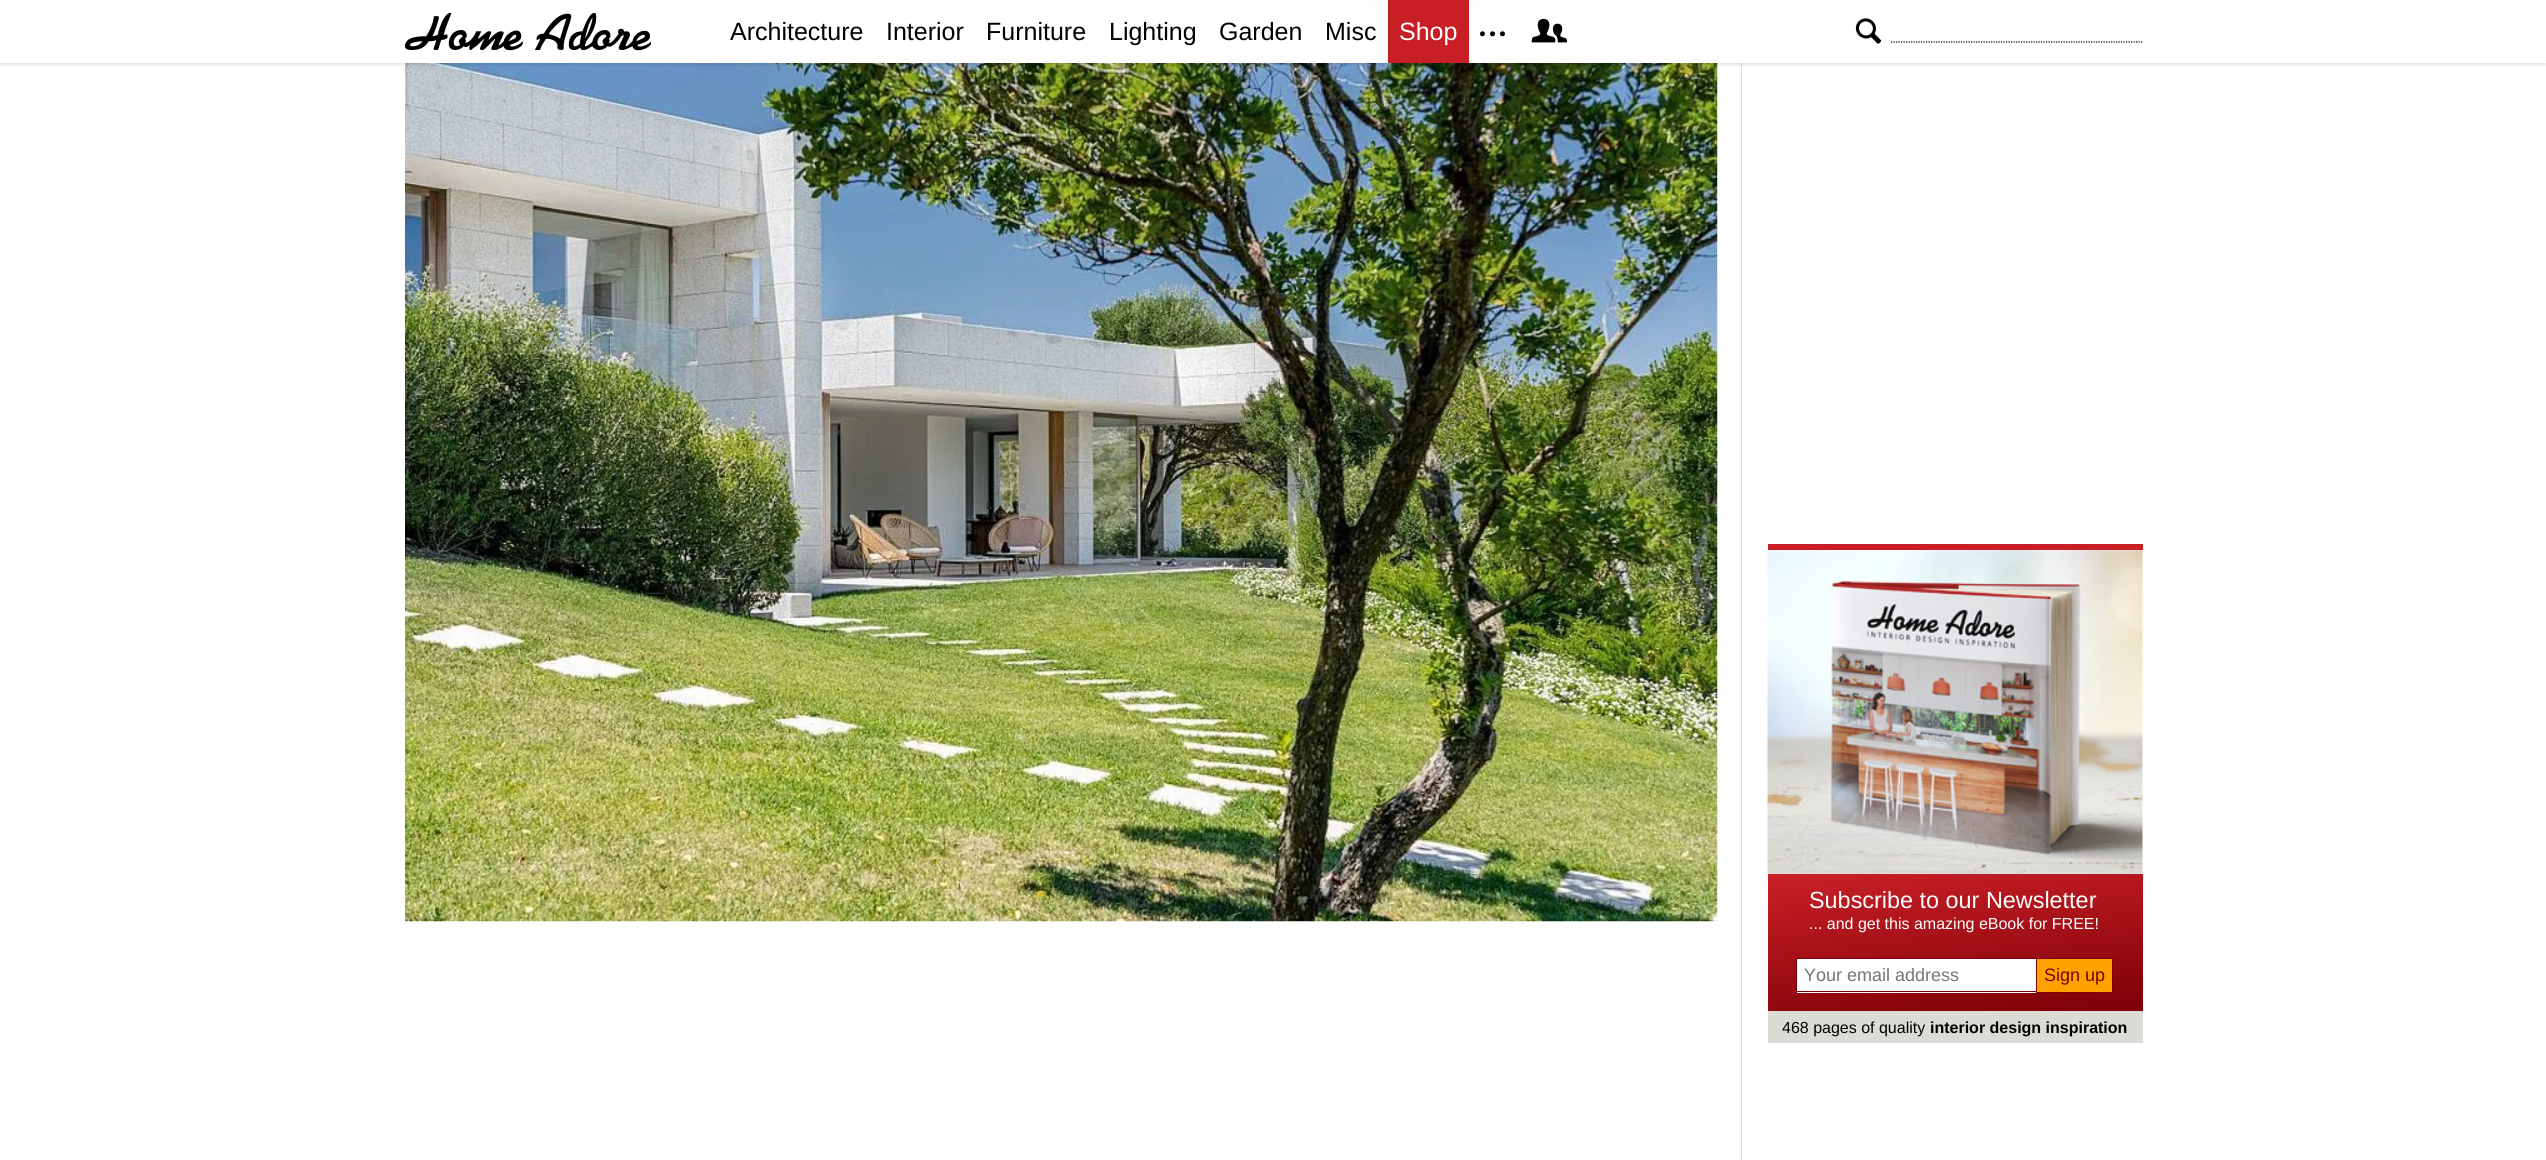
#include <cairo.h>
#include <math.h>
#include <stddef.h>

typedef struct { const char *family; double size; int italic, bold; unsigned color; } style_t;
static cairo_t *ctx;

static void ink(unsigned color) {
    cairo_set_source_rgb(ctx, (color >> 16) / 255.0, (color >> 8 & 255) / 255.0, (color & 255) / 255.0);
}

static void write(double x, double y, const char *s, const style_t *st) {
    cairo_select_font_face(ctx, st->family, st->italic ? CAIRO_FONT_SLANT_ITALIC : CAIRO_FONT_SLANT_NORMAL,
        st->bold ? CAIRO_FONT_WEIGHT_BOLD : CAIRO_FONT_WEIGHT_NORMAL);
    cairo_set_font_size(ctx, st->size);
    ink(st->color);
    cairo_move_to(ctx, x, y);
    cairo_show_text(ctx, s);
}

static void block(double x, double y, double w, double h, unsigned color) {
    ink(color);
    cairo_rectangle(ctx, x, y, w, h);
    cairo_fill(ctx);
}

static void round_path(double x, double y, double w, double h, double r) {
    cairo_new_sub_path(ctx);
    cairo_arc(ctx, x + w - r, y + h - r, r, 0, M_PI / 2);
    cairo_arc(ctx, x + r, y + h - r, r, M_PI / 2, M_PI);
    cairo_arc(ctx, x + r, y + r, r, M_PI, 1.5 * M_PI);
    cairo_arc(ctx, x + w - r, y + r, r, 1.5 * M_PI, 2 * M_PI);
    cairo_close_path(ctx);
}

static void blur_box(double x, double y, double w, double h, double r, double blur, double alpha) {
    cairo_push_group_with_content(ctx, CAIRO_CONTENT_ALPHA);
    cairo_set_operator(ctx, CAIRO_OPERATOR_SOURCE);
    for (int i = 15; i >= -15 && fmin(w, h) + blur * i / 3 > 0; i -= 2) {
        double e = blur * i / 6;
        cairo_set_source_rgba(ctx, 0, 0, 0, alpha * erfc((i - 1) / 8.5) / 2);
        round_path(x - e, y - e, w + 2 * e, h + 2 * e, fmax(0, fmin(r + e + blur * .6, fmin(w, h) / 2 + e)));
        cairo_fill(ctx);
    }
    cairo_pattern_t *soft = cairo_pop_group(ctx);
    cairo_mask(ctx, soft);
    cairo_pattern_destroy(soft);
}

static void paste(const char *path, double x, double y, double w, double h) {
    cairo_surface_t *image = cairo_image_surface_create_from_png(path);
    cairo_save(ctx);
    cairo_set_source_surface(ctx, image, x, y);
    cairo_rectangle(ctx, x, y, w, h);
    cairo_fill(ctx);
    cairo_restore(ctx);
    cairo_surface_destroy(image);
}

static const style_t s1 = {"Liberation Sans", 25, 0, 0, 0x000000};
static const style_t s2 = {"Liberation Sans", 25, 0, 0, 0xffffff};
static const style_t s3 = {"Liberation Sans", 23.4, 0, 0, 0xffffff};
static const style_t s4 = {"Liberation Sans", 16, 0, 0, 0xffffff};
static const style_t s5 = {"Liberation Sans", 18, 0, 0, 0x757575};
static const style_t s6 = {"Liberation Sans", 18, 0, 0, 0x7c0006};
static const style_t s7 = {"Liberation Sans", 16, 0, 0, 0x000000};
static const style_t s8 = {"Liberation Sans", 16, 0, 1, 0x000000};

int main(void) {
    cairo_surface_t *surface = cairo_image_surface_create(CAIRO_FORMAT_RGB24, 2546, 1160);
    ctx = cairo_create(surface);
    cairo_font_options_t *options = cairo_font_options_create();
    cairo_font_options_set_hint_metrics(options, CAIRO_HINT_METRICS_OFF);
    cairo_font_options_set_hint_style(options, CAIRO_HINT_STYLE_NONE);
    cairo_set_font_options(ctx, options);
    cairo_set_miter_limit(ctx, 4);
    cairo_pattern_t *gradient;
    ink(0xffffff);
    cairo_paint(ctx);
    block(1741, 63, 1, 1097, 0xdddddd);
    paste("pic4.png", 405, 63, 1313, 859);
    ink(0x000000);
    blur_box(0, 3, 2546, 62, 0, 1, 0.1);
    block(0, 2, 2546, 61, 0xffffff);
    paste("pic1.png", 405, 13, 246, 38);
    write(730, 40, "Architecture", &s1);
    write(886, 40, "Interior", &s1);
    write(986, 40, "Furniture", &s1);
    write(1109, 40, "Lighting", &s1);
    write(1219, 40, "Garden", &s1);
    write(1325, 40, "Misc", &s1);
    block(1388, 0, 81, 63, 0xc81f26);
    write(1399, 40, "Shop", &s2);
    ink(0x000000);
    cairo_new_path(ctx);
    cairo_arc(ctx, 1482.5, 33.8, 2.5, 0, 2 * M_PI);
    cairo_fill(ctx);
    cairo_arc(ctx, 1492.5, 33.8, 2.5, 0, 2 * M_PI);
    cairo_fill(ctx);
    cairo_arc(ctx, 1502.5, 33.8, 2.5, 0, 2 * M_PI);
    cairo_fill(ctx);
    paste("pic2.png", 1531, 18, 36, 25);
    paste("pic3.png", 1855, 18, 27, 26);
    cairo_new_path(ctx);
    cairo_move_to(ctx, 1891, 42);
    cairo_line_to(ctx, 2142.5, 42);
    cairo_set_line_width(ctx, 1.2);
    cairo_set_dash(ctx, (double[]){1.25, 1.25}, 2, 0);
    cairo_stroke(ctx);
    block(1768, 544, 375, 6, 0xc81f26);
    paste("pic5.png", 1767, 550, 376, 324);
    gradient = cairo_pattern_create_linear(1944, 852, 1966, 1033);
    cairo_pattern_add_color_stop_rgba(gradient, 0, 0.796, 0.125, 0.153, 1);
    cairo_pattern_add_color_stop_rgba(gradient, 1, 0.486, 0, 0.024, 1);
    cairo_set_source(ctx, gradient);
    cairo_pattern_destroy(gradient);
    cairo_rectangle(ctx, 1768, 874, 375, 137);
    cairo_fill(ctx);
    write(1809, 908, "Subscribe to our Newsletter", &s3);
    write(1809, 929, "... and get this amazing eBook for FREE!", &s4);
    block(1797, 959, 239, 34, 0xffffff);
    block(1796, 958, 240, 1, 0x7c0006);
    block(1796, 991, 240, 1, 0x7c0006);
    block(1796, 958, 1, 35, 0x7c0006);
    write(1804, 981, "Your email address", &s5);
    ink(0xfea200);
    cairo_rectangle(ctx, 2036.5, 958.5, 76, 34);
    cairo_fill_preserve(ctx);
    ink(0x7c0006);
    cairo_set_line_width(ctx, 1);
    cairo_set_dash(ctx, NULL, 0, 0);
    cairo_stroke(ctx);
    write(2044, 981, "Sign up", &s6);
    block(1768, 1011, 375, 32, 0xdddbd5);
    write(1782, 1033, "468 pages of quality", &s7);
    write(1930, 1033, "interior design inspiration", &s8);
    cairo_surface_write_to_png(surface, "screenshot.png");
    cairo_font_options_destroy(options);
    cairo_destroy(ctx);
    cairo_surface_destroy(surface);
    return 0;
}
